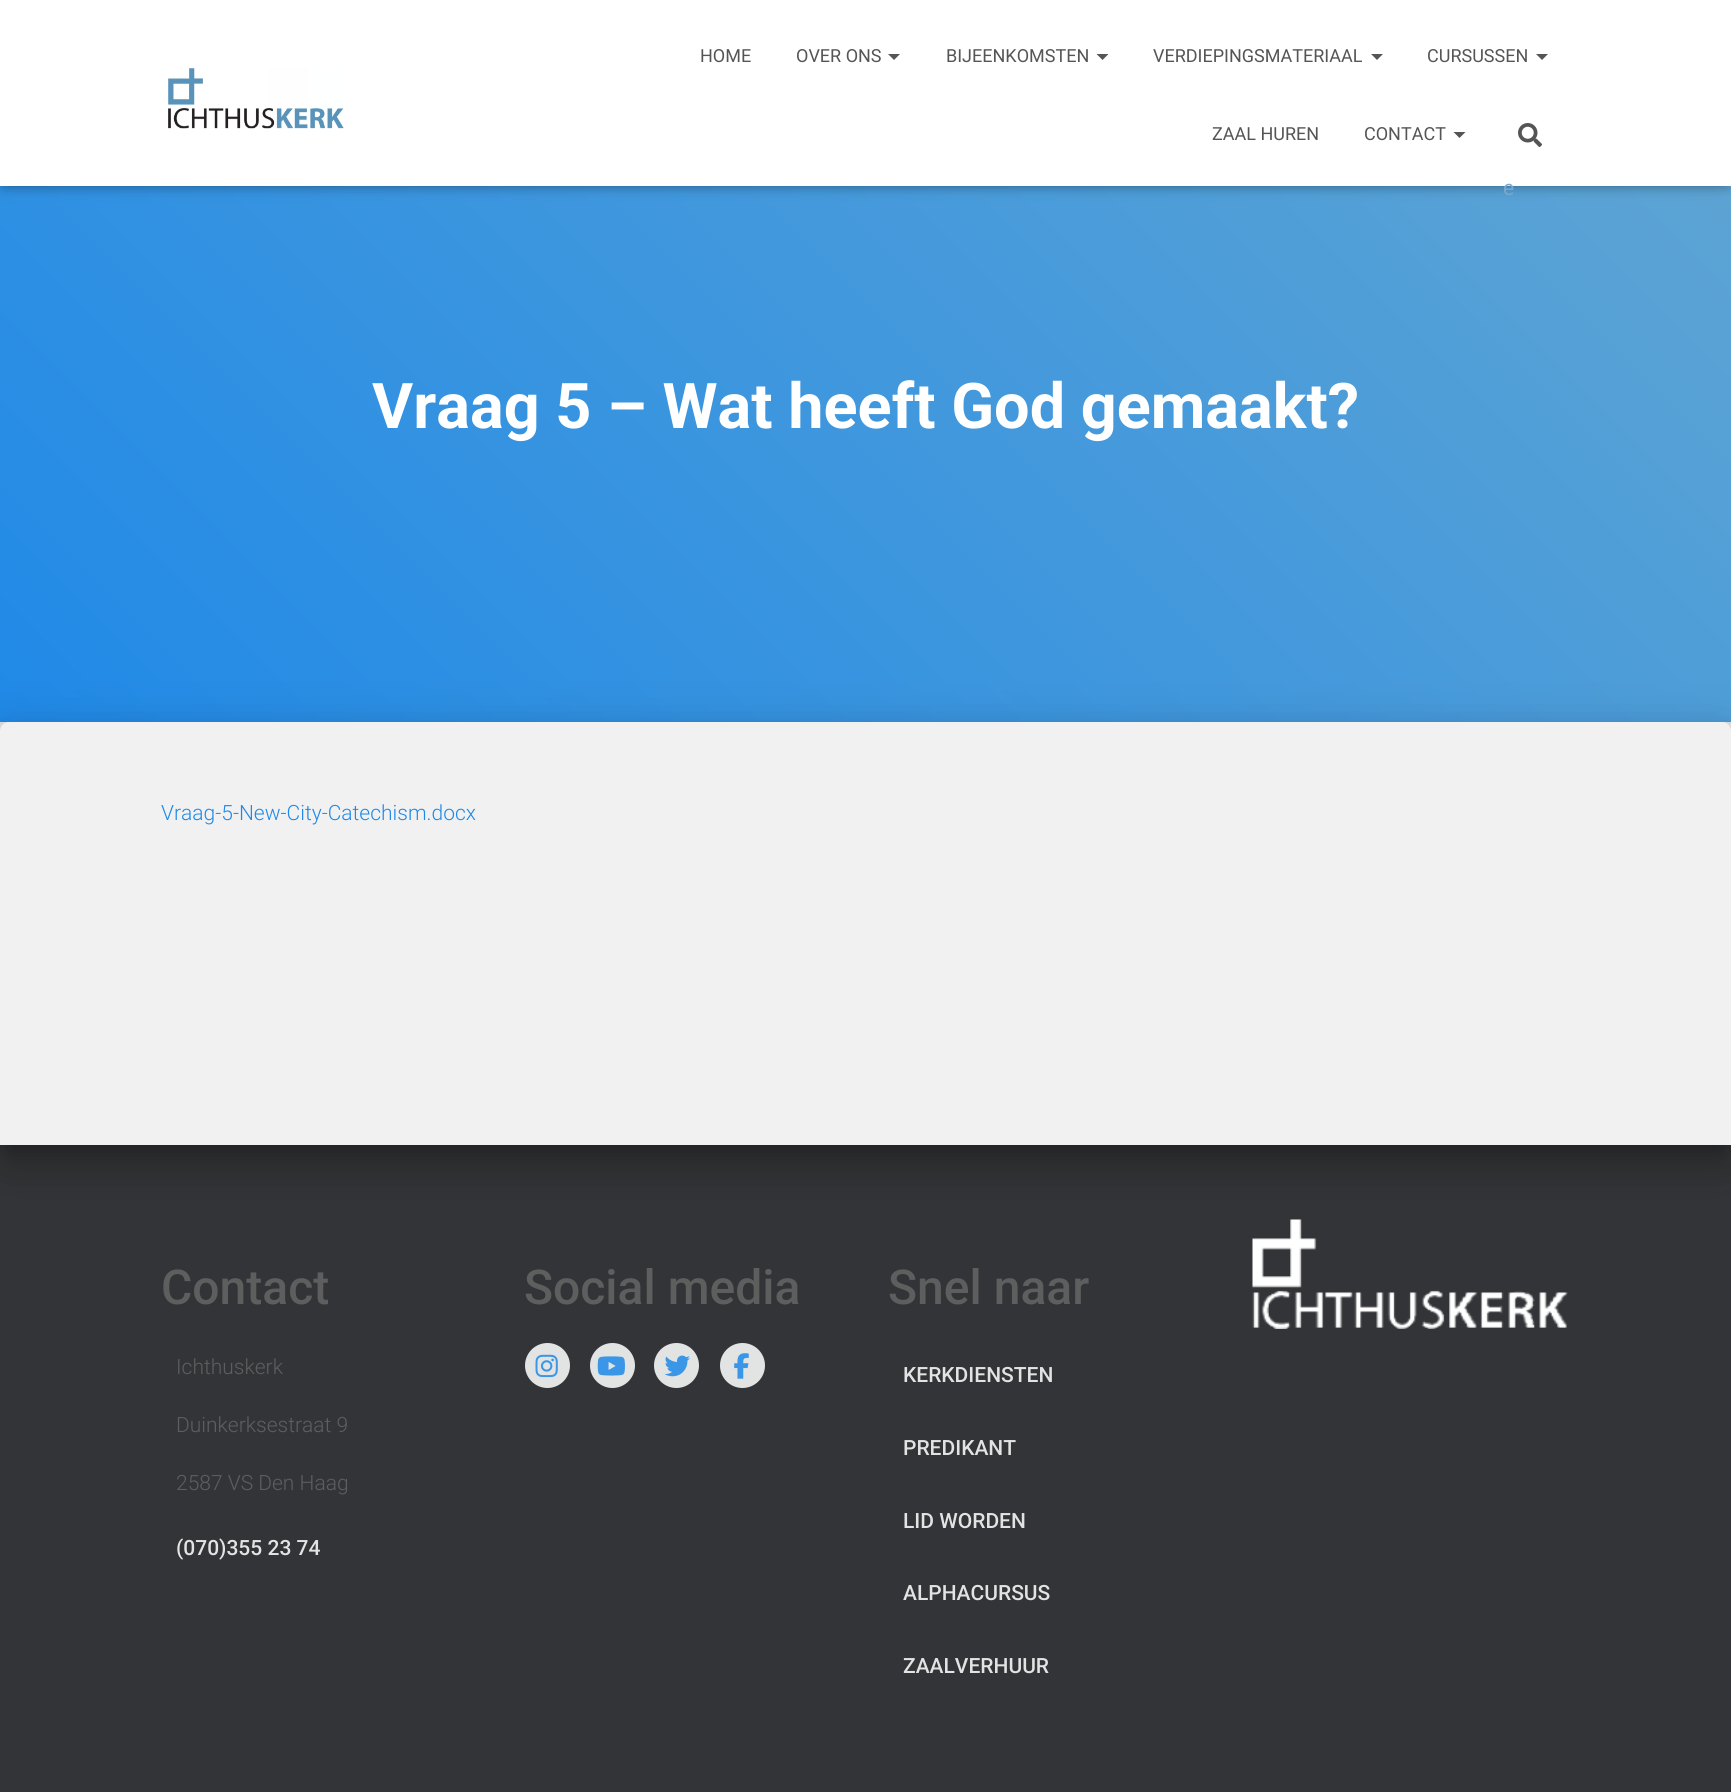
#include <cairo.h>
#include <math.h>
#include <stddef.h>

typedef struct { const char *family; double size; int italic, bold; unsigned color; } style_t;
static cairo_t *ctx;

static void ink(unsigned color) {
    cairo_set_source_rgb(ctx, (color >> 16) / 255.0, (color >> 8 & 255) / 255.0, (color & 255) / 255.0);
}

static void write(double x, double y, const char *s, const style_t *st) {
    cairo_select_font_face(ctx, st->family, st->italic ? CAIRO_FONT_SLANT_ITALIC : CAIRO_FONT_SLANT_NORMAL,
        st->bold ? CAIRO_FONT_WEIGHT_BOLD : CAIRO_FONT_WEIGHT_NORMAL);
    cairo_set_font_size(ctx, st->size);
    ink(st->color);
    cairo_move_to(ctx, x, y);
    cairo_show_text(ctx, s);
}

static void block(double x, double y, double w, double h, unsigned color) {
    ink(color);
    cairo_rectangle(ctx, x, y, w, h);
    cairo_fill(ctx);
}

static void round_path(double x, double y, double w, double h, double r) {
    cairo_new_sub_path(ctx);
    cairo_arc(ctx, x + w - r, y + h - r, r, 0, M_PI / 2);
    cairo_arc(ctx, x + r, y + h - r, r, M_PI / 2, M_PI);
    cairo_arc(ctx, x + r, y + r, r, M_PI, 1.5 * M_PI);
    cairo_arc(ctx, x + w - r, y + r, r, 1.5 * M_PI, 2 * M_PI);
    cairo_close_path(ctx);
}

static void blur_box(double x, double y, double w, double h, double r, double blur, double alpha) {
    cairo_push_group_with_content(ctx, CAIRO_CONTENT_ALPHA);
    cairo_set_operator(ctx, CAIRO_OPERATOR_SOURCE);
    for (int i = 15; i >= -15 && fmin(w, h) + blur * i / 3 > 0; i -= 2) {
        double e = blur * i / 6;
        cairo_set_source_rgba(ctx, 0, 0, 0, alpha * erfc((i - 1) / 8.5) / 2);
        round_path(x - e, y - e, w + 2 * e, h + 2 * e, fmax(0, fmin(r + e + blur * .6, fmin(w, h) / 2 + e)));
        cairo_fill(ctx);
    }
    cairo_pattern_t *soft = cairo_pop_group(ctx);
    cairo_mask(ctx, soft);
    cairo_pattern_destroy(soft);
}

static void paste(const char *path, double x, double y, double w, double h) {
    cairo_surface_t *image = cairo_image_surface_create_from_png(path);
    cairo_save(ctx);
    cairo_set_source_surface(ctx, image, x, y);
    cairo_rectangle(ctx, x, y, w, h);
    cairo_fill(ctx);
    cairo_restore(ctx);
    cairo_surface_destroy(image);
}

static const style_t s1 = {"Roboto", 18, 0, 0, 0x555555};
static const style_t s2 = {"Roboto", 21, 0, 0, 0x76a9ce};
static const style_t s3 = {"Roboto", 63, 0, 1, 0xffffff};
static const style_t s4 = {"Roboto Light", 21, 0, 0, 0x1e89e8};
static const style_t s5 = {"Roboto Medium", 48, 0, 0, 0x5e5e5e};
static const style_t s6 = {"Roboto Light", 21, 0, 0, 0x5e5e5e};
static const style_t s7 = {"Roboto Medium", 21, 0, 0, 0xe2e3e3};

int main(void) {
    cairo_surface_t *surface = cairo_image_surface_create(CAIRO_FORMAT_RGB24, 1731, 1792);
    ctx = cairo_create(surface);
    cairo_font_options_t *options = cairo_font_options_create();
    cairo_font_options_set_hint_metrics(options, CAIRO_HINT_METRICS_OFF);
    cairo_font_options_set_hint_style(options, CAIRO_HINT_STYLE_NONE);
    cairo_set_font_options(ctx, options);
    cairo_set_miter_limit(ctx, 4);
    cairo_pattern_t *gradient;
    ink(0xe5e5e5);
    cairo_paint(ctx);
    gradient = cairo_pattern_create_linear(252, 1049, 1479, -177);
    cairo_pattern_add_color_stop_rgba(gradient, 0, 0.118, 0.537, 0.91, 1);
    cairo_pattern_add_color_stop_rgba(gradient, 1, 0.376, 0.647, 0.827, 1);
    cairo_set_source(ctx, gradient);
    cairo_pattern_destroy(gradient);
    cairo_rectangle(ctx, 0, 186, 1731, 536);
    cairo_fill(ctx);
    ink(0x000000);
    blur_box(3, 9, 1725, 180, 0, 4, 0.1);
    blur_box(0, 2, 1731, 186, 0, 7.5, 0.12);
    blur_box(9, 11, 1713, 168, 0, 7.5, 0.42);
    block(0, 0, 1731, 186, 0xffffff);
    paste("pic1.png", 168, 68, 176, 61);
    write(700, 62, "HOME", &s1);
    write(796, 62, "OVER ONS", &s1);
    cairo_new_path(ctx);
    cairo_move_to(ctx, 888, 54);
    cairo_line_to(ctx, 900, 54);
    cairo_line_to(ctx, 894, 60);
    cairo_close_path(ctx);
    cairo_fill(ctx);
    write(946, 62, "BIJEENKOMSTEN", &s1);
    cairo_new_path(ctx);
    cairo_move_to(ctx, 1096.5, 54);
    cairo_line_to(ctx, 1108.5, 54);
    cairo_line_to(ctx, 1102.5, 60);
    cairo_close_path(ctx);
    cairo_fill(ctx);
    write(1153, 62, "VERDIEPINGSMATERIAAL", &s1);
    cairo_new_path(ctx);
    cairo_move_to(ctx, 1371, 54);
    cairo_line_to(ctx, 1383, 54);
    cairo_line_to(ctx, 1377, 60);
    cairo_close_path(ctx);
    cairo_fill(ctx);
    write(1427, 62, "CURSUSSEN", &s1);
    cairo_new_path(ctx);
    cairo_move_to(ctx, 1536, 54);
    cairo_line_to(ctx, 1548, 54);
    cairo_line_to(ctx, 1542, 60);
    cairo_close_path(ctx);
    cairo_fill(ctx);
    write(1212, 140, "ZAAL HUREN", &s1);
    write(1364, 140, "CONTACT", &s1);
    cairo_new_path(ctx);
    cairo_move_to(ctx, 1453.5, 132);
    cairo_line_to(ctx, 1465.5, 132);
    cairo_line_to(ctx, 1459.5, 138);
    cairo_close_path(ctx);
    cairo_fill(ctx);
    paste("pic2.png", 1518, 123, 24, 24);
    write(1503, 195, "e", &s2);
    write(372, 428, "Vraag 5 – Wat heeft God gemaakt?", &s3);
    block(0, 1145, 1731, 647, 0x323437);
    ink(0x000000);
    blur_box(8, 741, 1716, 408, 1.5, 7.5, 0.2);
    blur_box(-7, 723, 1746, 438, 17, 22.5, 0.12);
    blur_box(-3, 743, 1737, 429, 12, 18, 0.14);
    ink(0xf1f1f1);
    cairo_new_path(ctx);
    cairo_move_to(ctx, 9, 722);
    cairo_line_to(ctx, 1722, 722);
    cairo_curve_to(ctx, 1727, 722, 1731, 726, 1731, 731);
    cairo_line_to(ctx, 1731, 1145);
    cairo_line_to(ctx, 0, 1145);
    cairo_line_to(ctx, 0, 731);
    cairo_curve_to(ctx, 0, 726, 4, 722, 9, 722);
    cairo_close_path(ctx);
    cairo_fill(ctx);
    write(161, 820, "Vraag-5-New-City-Catechism.docx", &s4);
    write(161, 1304, "Contact", &s5);
    write(176, 1374, "Ichthuskerk", &s6);
    write(176, 1432, "Duinkerksestraat 9", &s6);
    write(176, 1490, "2587 VS Den Haag", &s6);
    write(176, 1555, "(070)355 23 74", &s7);
    write(524, 1304, "Social media", &s5);
    ink(0xe2e3e3);
    cairo_new_path(ctx);
    cairo_arc(ctx, 547.5, 1365.5, 22.5, 0, 2 * M_PI);
    cairo_fill(ctx);
    paste("pic3.png", 535, 1354, 23, 24);
    cairo_arc(ctx, 612.5, 1365.5, 22.5, 0, 2 * M_PI);
    cairo_fill(ctx);
    paste("pic4.png", 597, 1356, 28, 20);
    cairo_arc(ctx, 676.5, 1365.5, 22.5, 0, 2 * M_PI);
    cairo_fill(ctx);
    paste("pic5.png", 664, 1355, 26, 22);
    cairo_arc(ctx, 742.5, 1365.5, 22.5, 0, 2 * M_PI);
    cairo_fill(ctx);
    paste("pic6.png", 734, 1353, 15, 26);
    write(888, 1304, "Snel naar", &s5);
    write(903, 1382, "KERKDIENSTEN", &s7);
    write(903, 1455, "PREDIKANT", &s7);
    write(903, 1528, "LID WORDEN", &s7);
    write(903, 1600, "ALPHACURSUS", &s7);
    write(903, 1673, "ZAALVERHUUR", &s7);
    paste("pic7.png", 1252, 1219, 316, 110);
    cairo_surface_write_to_png(surface, "screenshot.png");
    cairo_font_options_destroy(options);
    cairo_destroy(ctx);
    cairo_surface_destroy(surface);
    return 0;
}
